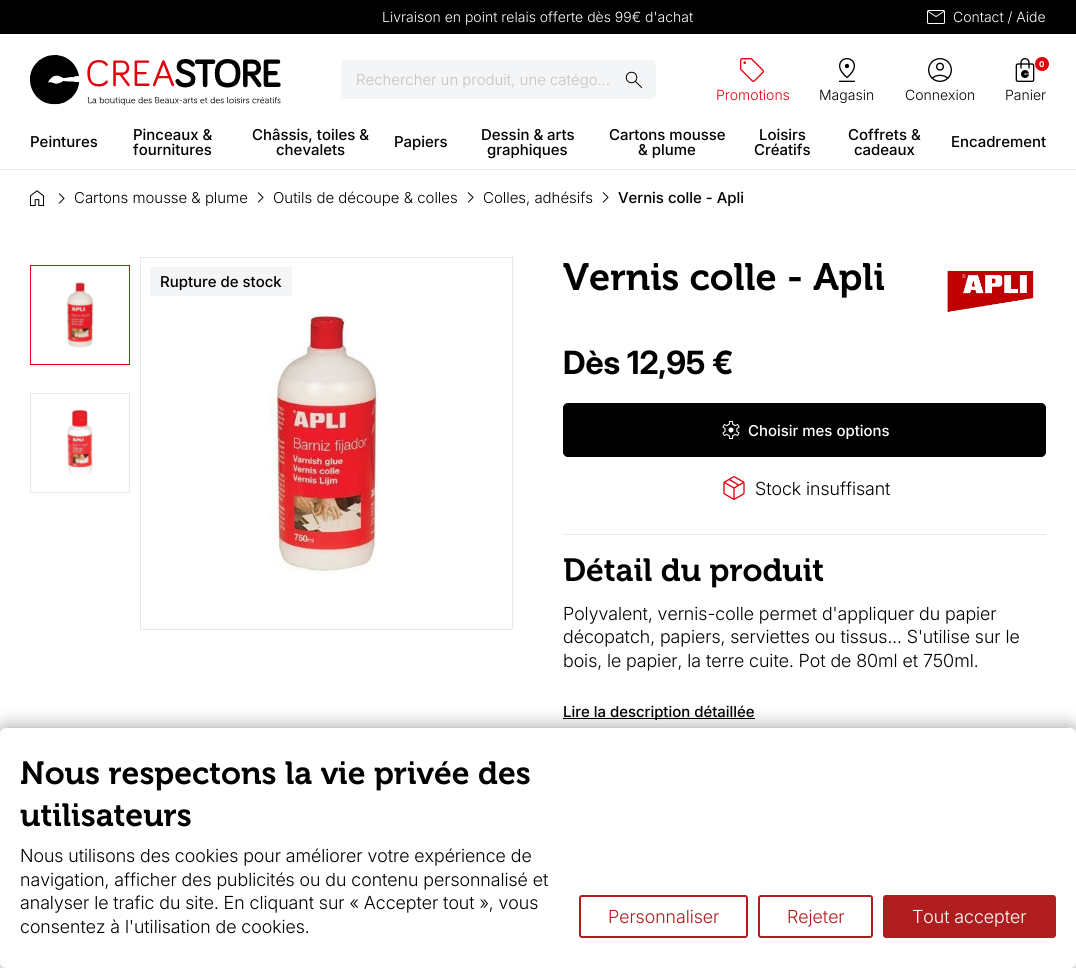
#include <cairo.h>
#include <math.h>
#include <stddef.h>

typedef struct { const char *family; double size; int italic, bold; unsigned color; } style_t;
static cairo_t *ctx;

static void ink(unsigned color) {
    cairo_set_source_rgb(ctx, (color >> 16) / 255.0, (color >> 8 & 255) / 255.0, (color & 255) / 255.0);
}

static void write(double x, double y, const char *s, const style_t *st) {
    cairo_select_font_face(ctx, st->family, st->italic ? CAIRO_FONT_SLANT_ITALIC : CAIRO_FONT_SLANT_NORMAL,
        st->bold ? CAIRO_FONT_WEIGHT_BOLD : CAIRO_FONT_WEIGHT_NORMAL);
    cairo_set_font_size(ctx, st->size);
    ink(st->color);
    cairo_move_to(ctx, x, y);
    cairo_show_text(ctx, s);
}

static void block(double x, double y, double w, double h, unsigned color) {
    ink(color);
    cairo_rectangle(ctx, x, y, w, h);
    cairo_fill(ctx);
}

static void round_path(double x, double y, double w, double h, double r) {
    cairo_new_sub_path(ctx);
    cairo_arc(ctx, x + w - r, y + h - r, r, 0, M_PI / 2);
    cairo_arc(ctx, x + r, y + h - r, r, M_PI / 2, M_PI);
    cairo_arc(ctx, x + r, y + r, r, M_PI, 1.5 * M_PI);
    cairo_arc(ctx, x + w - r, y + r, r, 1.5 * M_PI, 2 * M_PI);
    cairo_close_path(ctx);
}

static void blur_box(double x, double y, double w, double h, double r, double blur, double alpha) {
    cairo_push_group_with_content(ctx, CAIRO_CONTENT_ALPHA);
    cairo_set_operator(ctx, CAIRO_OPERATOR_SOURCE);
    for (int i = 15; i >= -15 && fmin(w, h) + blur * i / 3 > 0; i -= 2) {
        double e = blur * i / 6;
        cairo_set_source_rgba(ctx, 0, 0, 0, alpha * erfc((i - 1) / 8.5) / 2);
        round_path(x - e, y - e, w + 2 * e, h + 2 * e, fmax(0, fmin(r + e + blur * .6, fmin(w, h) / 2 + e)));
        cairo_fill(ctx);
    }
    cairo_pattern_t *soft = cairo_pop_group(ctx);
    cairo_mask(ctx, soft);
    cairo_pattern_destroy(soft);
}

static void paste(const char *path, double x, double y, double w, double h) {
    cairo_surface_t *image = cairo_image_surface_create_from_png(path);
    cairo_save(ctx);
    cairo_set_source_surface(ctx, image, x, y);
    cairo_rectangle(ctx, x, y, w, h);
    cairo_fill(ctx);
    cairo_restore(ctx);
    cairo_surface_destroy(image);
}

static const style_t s1 = {"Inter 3 Light", 14, 0, 0, 0xffffff};
static const style_t s2 = {"Inter Light", 15, 0, 0, 0xc3c3c4};
static const style_t s3 = {"Inter 3 Light", 14, 0, 0, 0xe2010b};
static const style_t s4 = {"Inter 3 Light", 14, 0, 0, 0x000000};
static const style_t s5 = {"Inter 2", 8, 0, 1, 0xffffff};
static const style_t s6 = {"Inter Medium", 15, 0, 0, 0x000000};
static const style_t s7 = {"Inter Light", 15, 0, 0, 0x000000};
static const style_t s8 = {"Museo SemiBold", 38, 0, 0, 0x000000};
static const style_t s9 = {"Inter", 32, 0, 1, 0x000000};
static const style_t s10 = {"Inter Medium", 15, 0, 0, 0xffffff};
static const style_t s11 = {"Inter 2 Light", 18, 0, 0, 0x000000};
static const style_t s12 = {"Museo SemiBold", 32, 0, 0, 0x000000};
static const style_t s13 = {"Inter 2 Light", 18, 0, 0, 0xaf1d1f};
static const style_t s14 = {"Inter 2 Light", 18, 0, 0, 0xffffff};

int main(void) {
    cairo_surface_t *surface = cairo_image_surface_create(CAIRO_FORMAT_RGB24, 1076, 968);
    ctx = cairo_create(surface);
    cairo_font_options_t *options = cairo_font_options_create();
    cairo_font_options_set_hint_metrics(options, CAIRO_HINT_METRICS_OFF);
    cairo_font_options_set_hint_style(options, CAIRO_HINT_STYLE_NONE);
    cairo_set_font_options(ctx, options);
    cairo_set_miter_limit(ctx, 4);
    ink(0xffffff);
    cairo_paint(ctx);
    block(0, 0, 1076, 34, 0x000000);
    write(382, 22, "Livraison en point relais offerte dès 99€ d'achat", &s1);
    paste("pic1.png", 927, 10, 18, 14);
    write(953, 22, "Contact / Aide", &s1);
    block(0, 169, 1076, 1, 0xe5e7e9);
    paste("pic2.png", 30, 55, 251, 50);
    ink(0xf4f5f6);
    round_path(341, 60, 315, 39, 5);
    cairo_fill(ctx);
    write(356, 85, "Rechercher un produit, une catégo…", &s2);
    paste("pic3.png", 625, 71, 18, 18);
    paste("pic4.png", 740, 58, 24, 24);
    write(716, 100, "Promotions", &s3);
    paste("pic5.png", 839, 58, 16, 24);
    write(819, 100, "Magasin", &s4);
    paste("pic6.png", 928, 58, 24, 24);
    write(905, 100, "Connexion", &s4);
    paste("pic7.png", 1015, 58, 20, 24);
    paste("pic8.png", 1021, 70, 8, 8);
    ink(0xe2010b);
    cairo_arc(ctx, 1042, 64, 7, 0, 2 * M_PI);
    cairo_fill(ctx);
    write(1039, 67, "0", &s5);
    write(1005, 100, "Panier", &s4);
    write(30, 147, "Peintures", &s6);
    write(133, 140, "Pinceaux &", &s6);
    write(133, 155, "fournitures", &s6);
    write(252, 140, "Châssis, toiles &", &s6);
    write(276, 155, "chevalets", &s6);
    write(394, 147, "Papiers", &s6);
    write(481, 140, "Dessin & arts", &s6);
    write(487, 155, "graphiques", &s6);
    write(609, 140, "Cartons mousse", &s6);
    write(638, 155, "& plume", &s6);
    write(759, 140, "Loisirs", &s6);
    write(754, 155, "Créatifs", &s6);
    write(848, 140, "Coffrets &", &s6);
    write(854, 155, "cadeaux", &s6);
    write(951, 147, "Encadrement", &s6);
    paste("pic9.png", 30, 190, 14, 16);
    paste("pic10.png", 58, 193, 7, 11);
    write(74, 203, "Cartons mousse & plume", &s7);
    paste("pic10.png", 257, 192, 7, 11);
    write(273, 203, "Outils de découpe & colles", &s7);
    paste("pic10.png", 467, 192, 7, 11);
    write(483, 203, "Colles, adhésifs", &s7);
    paste("pic10.png", 602, 192, 7, 11);
    write(618, 203, "Vernis colle - Apli", &s6);
    cairo_rectangle(ctx, 30.5, 265.5, 99, 99);
    ink(0xe2010b);
    cairo_set_line_width(ctx, 1);
    cairo_stroke(ctx);
    paste("pic11.png", 66, 281, 28, 67);
    cairo_rectangle(ctx, 30.5, 393.5, 99, 99);
    ink(0xe5e7e9);
    cairo_stroke(ctx);
    paste("pic12.png", 66, 409, 27, 66);
    cairo_rectangle(ctx, 140.5, 257.5, 372, 372);
    cairo_stroke(ctx);
    paste("pic13.png", 269, 308, 112, 267);
    block(150, 267, 142, 29, 0xf4f5f6);
    write(160, 287, "Rupture de stock", &s6);
    write(563, 290, "Vernis colle - Apli", &s8);
    paste("pic14.png", 947, 270, 87, 42);
    write(563, 374, "Dès 12,95 €", &s9);
    round_path(563.5, 403.5, 482, 53, 4.5);
    cairo_fill_preserve(ctx);
    cairo_stroke(ctx);
    paste("pic15.png", 722, 421, 18, 18);
    write(748, 436, "Choisir mes options", &s10);
    paste("pic16.png", 723, 476, 22, 24);
    write(755, 495, "Stock insuffisant", &s11);
    block(563, 534, 483, 1, 0xe5e7e9);
    write(563, 581, "Détail du produit", &s12);
    write(563, 620, "Polyvalent, vernis-colle permet d'appliquer du papier", &s11);
    write(563, 643, "décopatch, papiers, serviettes ou tissus... S'utilise sur le", &s11);
    write(563, 667, "bois, le papier, la terre cuite. Pot de 80ml et 750ml.", &s11);
    block(563, 718, 192, 1, 0x000000);
    write(563, 717, "Lire la description détaillée", &s6);
    ink(0x000000);
    blur_box(0, 728, 1076, 240, 6, 10, 0.4);
    ink(0xffffff);
    round_path(0, 728, 1076, 240, 6);
    cairo_fill(ctx);
    write(20, 784, "Nous respectons la vie privée des", &s12);
    write(20, 826, "utilisateurs", &s12);
    write(20, 862, "Nous utilisons des cookies pour améliorer votre expérience de", &s11);
    write(20, 886, "navigation, afficher des publicités ou du contenu personnalisé et", &s11);
    write(20, 909, "analyser le trafic du site. En cliquant sur « Accepter tout », vous", &s11);
    write(20, 933, "consentez à l'utilisation de cookies.", &s11);
    round_path(580, 896, 167, 41, 2);
    ink(0xaf1d1f);
    cairo_set_line_width(ctx, 2);
    cairo_stroke(ctx);
    write(608, 923, "Personnaliser", &s13);
    round_path(759, 896, 113, 41, 2);
    cairo_stroke(ctx);
    write(787, 923, "Rejeter", &s13);
    round_path(884, 896, 171, 41, 2);
    cairo_fill_preserve(ctx);
    cairo_stroke(ctx);
    write(912, 923, "Tout accepter", &s14);
    cairo_surface_write_to_png(surface, "screenshot.png");
    cairo_font_options_destroy(options);
    cairo_destroy(ctx);
    cairo_surface_destroy(surface);
    return 0;
}
